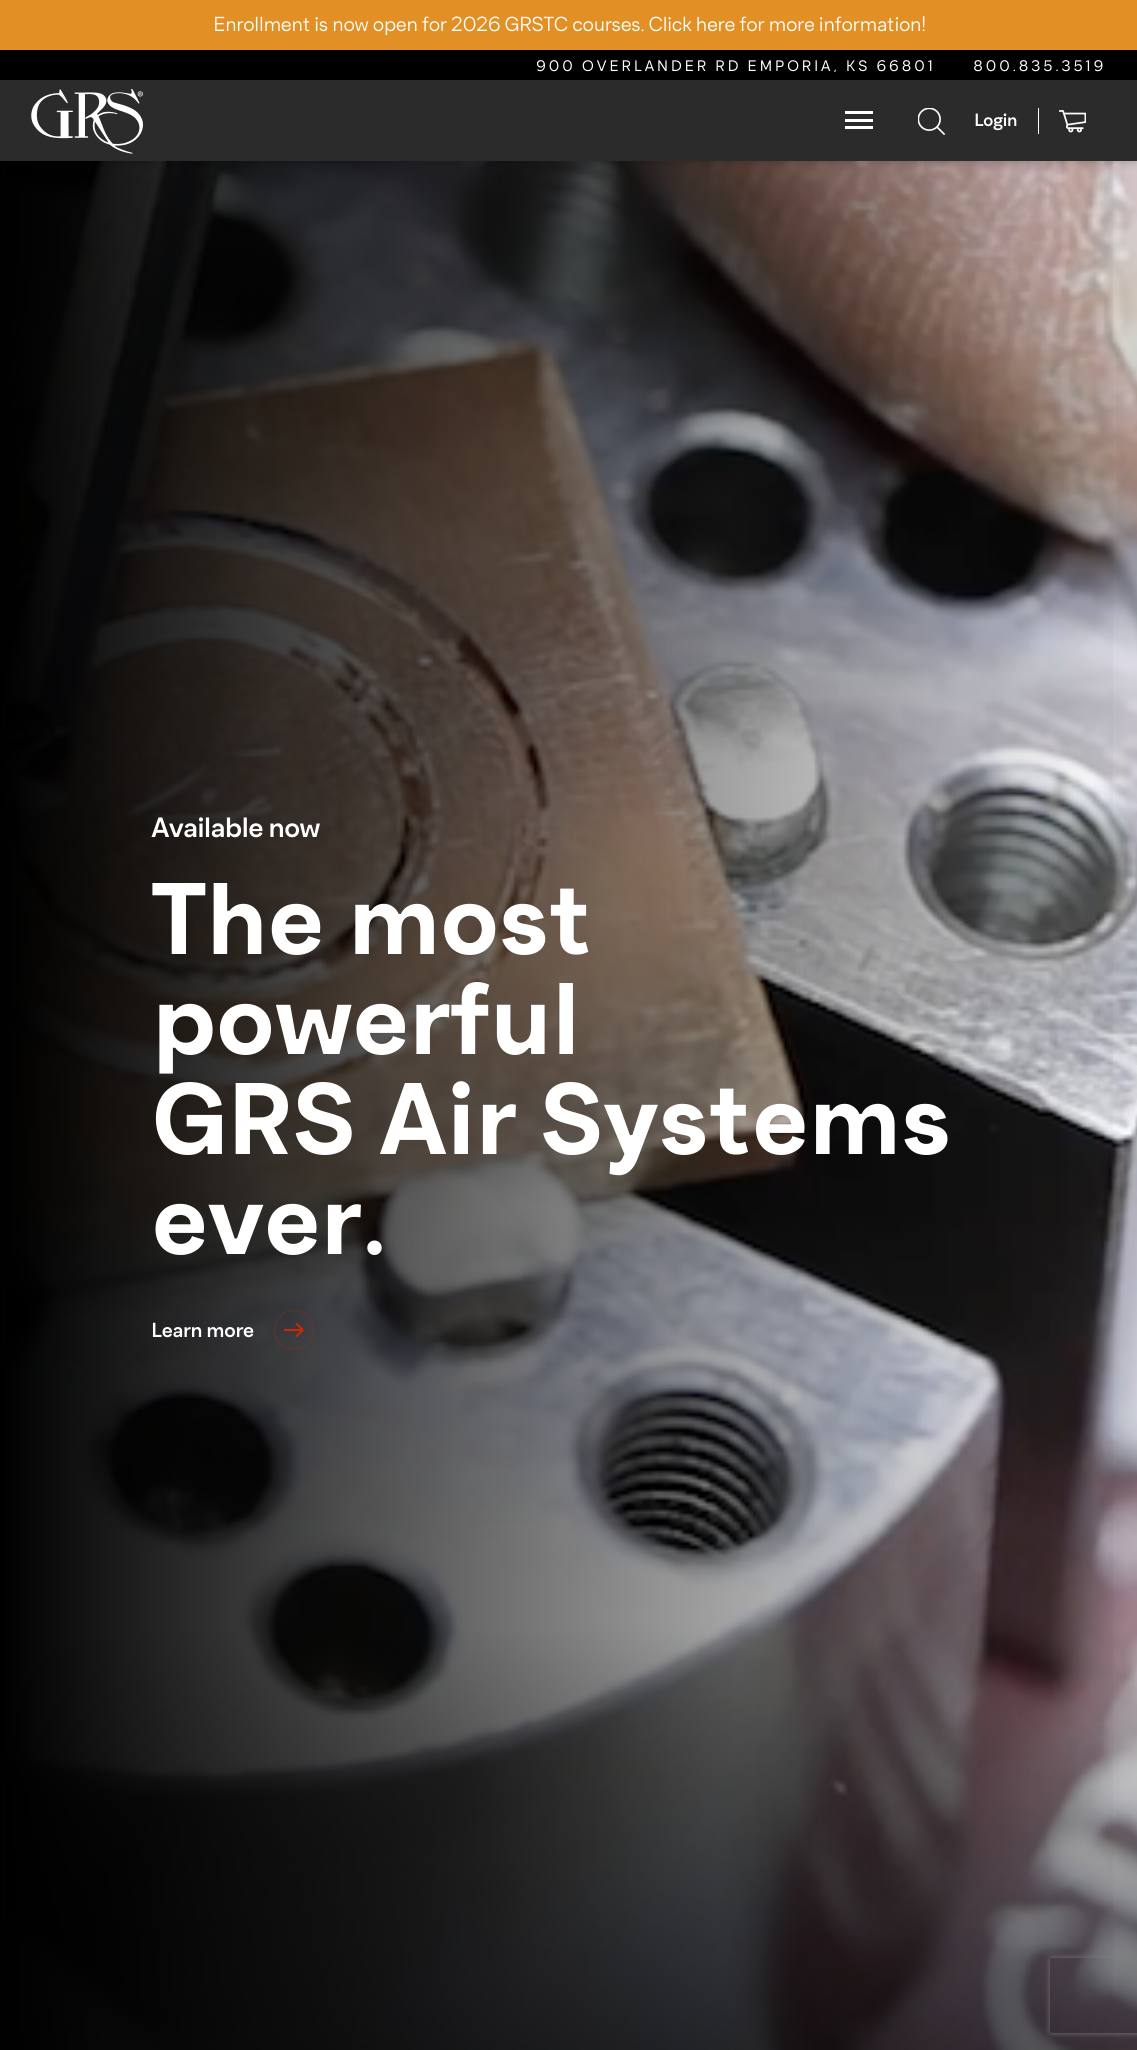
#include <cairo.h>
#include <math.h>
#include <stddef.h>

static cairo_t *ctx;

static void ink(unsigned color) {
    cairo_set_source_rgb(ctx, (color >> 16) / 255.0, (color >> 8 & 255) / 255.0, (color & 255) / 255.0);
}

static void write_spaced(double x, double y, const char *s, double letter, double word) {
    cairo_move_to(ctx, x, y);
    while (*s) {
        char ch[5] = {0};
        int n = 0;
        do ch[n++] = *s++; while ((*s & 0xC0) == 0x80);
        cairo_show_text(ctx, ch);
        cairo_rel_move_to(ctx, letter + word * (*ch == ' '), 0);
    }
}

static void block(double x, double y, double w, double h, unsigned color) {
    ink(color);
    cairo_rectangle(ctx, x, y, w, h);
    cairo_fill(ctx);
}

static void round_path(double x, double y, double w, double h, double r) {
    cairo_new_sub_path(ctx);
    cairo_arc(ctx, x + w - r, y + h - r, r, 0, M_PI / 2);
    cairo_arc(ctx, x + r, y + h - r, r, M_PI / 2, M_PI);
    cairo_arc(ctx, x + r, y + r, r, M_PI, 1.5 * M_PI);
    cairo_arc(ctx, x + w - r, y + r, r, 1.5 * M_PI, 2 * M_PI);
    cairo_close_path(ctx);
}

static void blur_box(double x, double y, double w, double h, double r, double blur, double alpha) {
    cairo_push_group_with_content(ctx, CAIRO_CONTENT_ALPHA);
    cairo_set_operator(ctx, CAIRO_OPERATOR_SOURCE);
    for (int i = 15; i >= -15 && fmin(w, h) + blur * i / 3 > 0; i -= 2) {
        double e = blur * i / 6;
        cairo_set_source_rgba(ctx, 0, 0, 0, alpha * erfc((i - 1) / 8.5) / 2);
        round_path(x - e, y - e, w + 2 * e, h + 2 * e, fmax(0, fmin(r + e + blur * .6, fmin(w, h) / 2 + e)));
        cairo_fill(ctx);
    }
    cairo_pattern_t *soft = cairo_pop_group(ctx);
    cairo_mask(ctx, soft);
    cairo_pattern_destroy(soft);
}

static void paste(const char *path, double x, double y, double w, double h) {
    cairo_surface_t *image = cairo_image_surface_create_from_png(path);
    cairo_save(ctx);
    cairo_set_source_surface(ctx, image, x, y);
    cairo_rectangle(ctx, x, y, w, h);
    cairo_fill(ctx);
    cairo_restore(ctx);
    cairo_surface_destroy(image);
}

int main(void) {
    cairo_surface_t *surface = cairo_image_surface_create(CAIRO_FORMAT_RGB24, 1137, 2050);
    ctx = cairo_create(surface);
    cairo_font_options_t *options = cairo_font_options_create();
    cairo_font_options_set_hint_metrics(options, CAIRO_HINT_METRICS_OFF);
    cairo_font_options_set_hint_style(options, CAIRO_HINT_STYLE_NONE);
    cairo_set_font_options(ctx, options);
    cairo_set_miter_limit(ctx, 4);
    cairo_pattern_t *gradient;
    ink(0xffffff);
    cairo_paint(ctx);
    paste("pic4.png", 7, 1778, 1130, 272);
    paste("pic5.png", 7, 161, 1130, 1617);
    cairo_save(ctx);
    cairo_set_fill_rule(ctx, CAIRO_FILL_RULE_EVEN_ODD);
    cairo_new_path(ctx);
    cairo_move_to(ctx, 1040, 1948);
    cairo_line_to(ctx, 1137, 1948);
    cairo_line_to(ctx, 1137, 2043);
    cairo_line_to(ctx, 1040, 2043);
    cairo_close_path(ctx);
    cairo_move_to(ctx, 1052.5, 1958);
    cairo_line_to(ctx, 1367.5, 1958);
    cairo_curve_to(ctx, 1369, 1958, 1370, 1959, 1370, 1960.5);
    cairo_line_to(ctx, 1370, 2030.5);
    cairo_curve_to(ctx, 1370, 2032, 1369, 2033, 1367.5, 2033);
    cairo_line_to(ctx, 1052.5, 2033);
    cairo_curve_to(ctx, 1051, 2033, 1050, 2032, 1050, 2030.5);
    cairo_line_to(ctx, 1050, 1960.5);
    cairo_curve_to(ctx, 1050, 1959, 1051, 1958, 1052.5, 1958);
    cairo_close_path(ctx);
    cairo_clip(ctx);
    ink(0x808080);
    blur_box(1050, 1958, 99, 75, 2.5, 3, 1);
    cairo_restore(ctx);
    gradient = cairo_pattern_create_linear(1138, 1081, 0, 1081);
    cairo_pattern_add_color_stop_rgba(gradient, 0, 0, 0, 0, 0);
    cairo_pattern_add_color_stop_rgba(gradient, 1, 0, 0, 0, 1);
    cairo_set_source(ctx, gradient);
    cairo_pattern_destroy(gradient);
    cairo_rectangle(ctx, 0, 161, 1113, 1889);
    cairo_fill(ctx);
    ink(0x000000);
    blur_box(1, 4, 1135, 159, 0, 2.5, 0.06);
    blur_box(1, 6, 1135, 159, 0, 4, 0.1);
    block(0, 80, 1137, 81, 0x2b2b2b);
    block(0, 0, 1137, 50, 0xe28f26);
    cairo_select_font_face(ctx, "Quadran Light", CAIRO_FONT_SLANT_NORMAL, CAIRO_FONT_WEIGHT_NORMAL);
    cairo_set_font_size(ctx, 20);
    ink(0xffffff);
    write_spaced(213, 31, "Enrollment is now open for 2026 GRSTC courses. Click here for more information!", -0.75, 0);
    block(0, 50, 1137, 30, 0x000000);
    cairo_select_font_face(ctx, "Quadran", CAIRO_FONT_SLANT_NORMAL, CAIRO_FONT_WEIGHT_NORMAL);
    cairo_set_font_size(ctx, 15);
    ink(0xffffff);
    write_spaced(536, 71, "900 OVERLANDER RD EMPORIA, KS 66801", 2.5, 0);
    write_spaced(973, 71, "800.835.3519", 2.5, 0);
    paste("pic1.png", 31, 89, 112, 65);
    block(845, 111, 28, 3, 0xffffff);
    block(845, 119, 28, 3, 0xffffff);
    block(845, 126, 28, 3, 0xffffff);
    paste("pic2.png", 918, 108, 27, 27);
    block(1038, 108, 1, 26, 0xffffff);
    cairo_select_font_face(ctx, "Quadran Medium", CAIRO_FONT_SLANT_NORMAL, CAIRO_FONT_WEIGHT_NORMAL);
    cairo_set_font_size(ctx, 17.5);
    write_spaced(974, 126, "Login", -0.75, 0);
    paste("pic3.png", 1059, 110, 27, 23);
    cairo_set_font_size(ctx, 27.5);
    write_spaced(151, 837, "Available now", -1.25, 0);
    cairo_select_font_face(ctx, "Quadran", CAIRO_FONT_SLANT_NORMAL, CAIRO_FONT_WEIGHT_BOLD);
    cairo_set_font_size(ctx, 100);
    write_spaced(151, 954, "The most", -1.5, 0);
    write_spaced(151, 1054, "powerful", -1.5, 0);
    write_spaced(151, 1154, "GRS Air Systems", -1.5, 0);
    write_spaced(151, 1254, "ever.", -1.5, 0);
    cairo_select_font_face(ctx, "Quadran Medium", CAIRO_FONT_SLANT_NORMAL, CAIRO_FONT_WEIGHT_NORMAL);
    cairo_set_font_size(ctx, 20);
    write_spaced(151, 1337, "Learn more", -0.75, 0);
    cairo_new_path(ctx);
    cairo_arc(ctx, 294, 1330, 19.5, 0, 2 * M_PI);
    cairo_set_source_rgba(ctx, 0.859, 0.145, 0.004, 0.25);
    cairo_set_line_width(ctx, 1);
    cairo_stroke(ctx);
    paste("pic6.png", 284, 1323, 20, 14);
    cairo_surface_write_to_png(surface, "screenshot.png");
    cairo_font_options_destroy(options);
    cairo_destroy(ctx);
    cairo_surface_destroy(surface);
    return 0;
}
